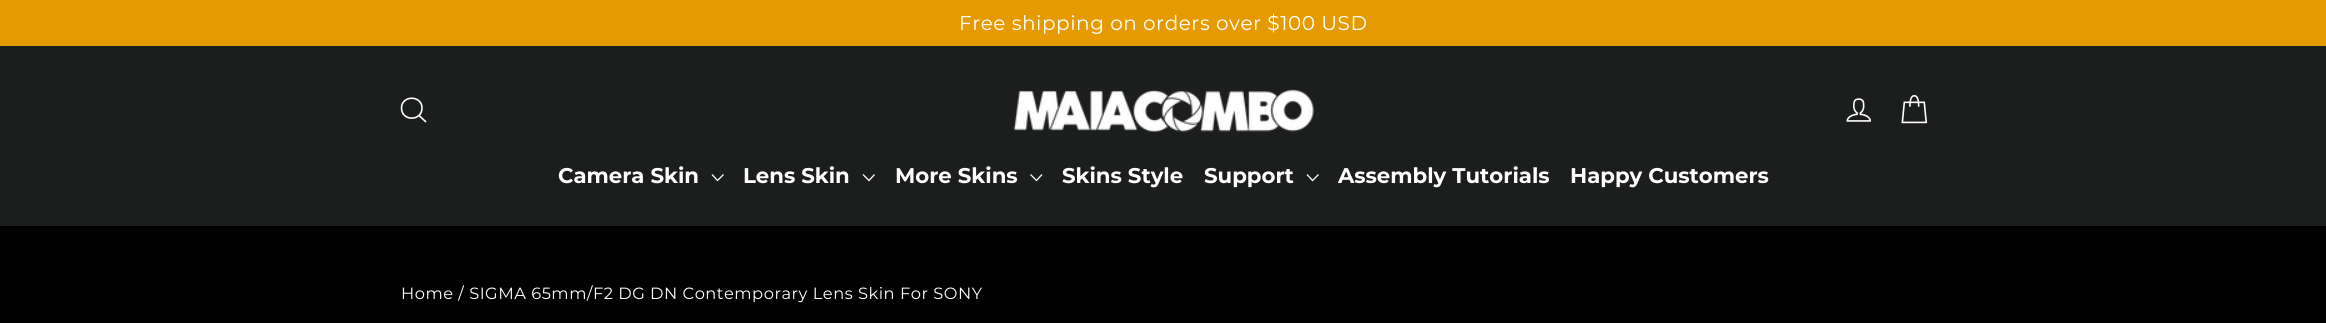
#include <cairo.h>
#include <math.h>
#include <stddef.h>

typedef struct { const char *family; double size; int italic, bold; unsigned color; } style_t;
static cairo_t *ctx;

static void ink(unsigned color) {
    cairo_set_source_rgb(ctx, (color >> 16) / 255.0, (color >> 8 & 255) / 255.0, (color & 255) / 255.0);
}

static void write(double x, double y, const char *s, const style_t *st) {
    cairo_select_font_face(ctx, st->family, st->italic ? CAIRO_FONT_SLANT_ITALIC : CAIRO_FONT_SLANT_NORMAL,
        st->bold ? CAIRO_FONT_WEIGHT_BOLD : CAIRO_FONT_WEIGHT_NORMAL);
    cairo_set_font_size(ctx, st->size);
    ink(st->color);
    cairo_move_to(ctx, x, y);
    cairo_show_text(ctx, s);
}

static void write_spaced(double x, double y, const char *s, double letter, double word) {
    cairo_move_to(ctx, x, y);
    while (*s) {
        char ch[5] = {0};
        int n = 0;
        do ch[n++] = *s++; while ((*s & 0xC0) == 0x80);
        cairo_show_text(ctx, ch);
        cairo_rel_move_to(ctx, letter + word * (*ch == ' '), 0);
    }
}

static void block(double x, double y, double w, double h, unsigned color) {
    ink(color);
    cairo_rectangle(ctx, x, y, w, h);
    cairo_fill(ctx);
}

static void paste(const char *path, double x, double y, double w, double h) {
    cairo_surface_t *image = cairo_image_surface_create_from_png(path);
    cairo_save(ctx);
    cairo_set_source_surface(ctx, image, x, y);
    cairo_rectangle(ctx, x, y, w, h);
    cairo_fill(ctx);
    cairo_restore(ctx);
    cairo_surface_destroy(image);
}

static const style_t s1 = {"Montserrat", 21.25, 0, 1, 0xffffff};

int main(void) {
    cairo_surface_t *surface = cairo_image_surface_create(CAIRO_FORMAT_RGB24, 2326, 323);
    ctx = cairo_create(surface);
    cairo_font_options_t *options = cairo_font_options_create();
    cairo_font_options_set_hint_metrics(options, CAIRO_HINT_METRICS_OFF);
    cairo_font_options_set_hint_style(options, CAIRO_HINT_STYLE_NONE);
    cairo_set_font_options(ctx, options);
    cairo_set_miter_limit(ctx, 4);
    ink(0x000000);
    cairo_paint(ctx);
    block(0, 0, 2326, 46, 0xe59a00);
    cairo_select_font_face(ctx, "Montserrat", CAIRO_FONT_SLANT_NORMAL, CAIRO_FONT_WEIGHT_NORMAL);
    cairo_set_font_size(ctx, 20);
    ink(0xffffff);
    write_spaced(959, 30, "Free shipping on orders over $100 USD", 0.53, 0);
    block(0, 46, 2326, 180, 0x1c1d1d);
    cairo_new_path(ctx);
    cairo_move_to(ctx, 422, 108);
    cairo_curve_to(ctx, 422, 121.5, 401.5, 121.5, 401.5, 108);
    cairo_curve_to(ctx, 401.5, 95, 422, 95, 422, 108);
    cairo_close_path(ctx);
    cairo_move_to(ctx, 426, 122);
    cairo_line_to(ctx, 419, 115.5);
    ink(0xffffff);
    cairo_set_line_width(ctx, 1.6);
    cairo_stroke(ctx);
    paste("pic1.png", 1013, 89, 301, 44);
    paste("pic2.png", 1846, 98, 25, 24);
    paste("pic3.png", 1901, 95, 27, 29);
    write(558, 183, "Camera Skin", &s1);
    cairo_new_path(ctx);
    cairo_move_to(ctx, 712, 174.5);
    cairo_line_to(ctx, 717.5, 180.5);
    cairo_line_to(ctx, 723.5, 174.5);
    cairo_set_line_width(ctx, 1.3);
    cairo_stroke(ctx);
    write(743, 183, "Lens Skin", &s1);
    cairo_new_path(ctx);
    cairo_move_to(ctx, 863, 174.5);
    cairo_line_to(ctx, 869, 180.5);
    cairo_line_to(ctx, 874.5, 174.5);
    cairo_stroke(ctx);
    write(895, 183, "More Skins", &s1);
    cairo_new_path(ctx);
    cairo_move_to(ctx, 1030.5, 174.5);
    cairo_line_to(ctx, 1036.5, 180.5);
    cairo_line_to(ctx, 1042, 174.5);
    cairo_stroke(ctx);
    write(1062, 183, "Skins Style", &s1);
    write(1204, 183, "Support", &s1);
    cairo_new_path(ctx);
    cairo_move_to(ctx, 1307, 174.5);
    cairo_line_to(ctx, 1312.5, 180.5);
    cairo_line_to(ctx, 1318.5, 174.5);
    cairo_stroke(ctx);
    write(1338, 183, "Assembly Tutorials", &s1);
    write(1570, 183, "Happy Customers", &s1);
    cairo_select_font_face(ctx, "Montserrat", CAIRO_FONT_SLANT_NORMAL, CAIRO_FONT_WEIGHT_NORMAL);
    cairo_set_font_size(ctx, 16.25);
    write_spaced(401, 299, "Home / SIGMA 65mm/F2 DG DN Contemporary Lens Skin For SONY", 0.53, 0);
    cairo_surface_write_to_png(surface, "screenshot.png");
    cairo_font_options_destroy(options);
    cairo_destroy(ctx);
    cairo_surface_destroy(surface);
    return 0;
}
